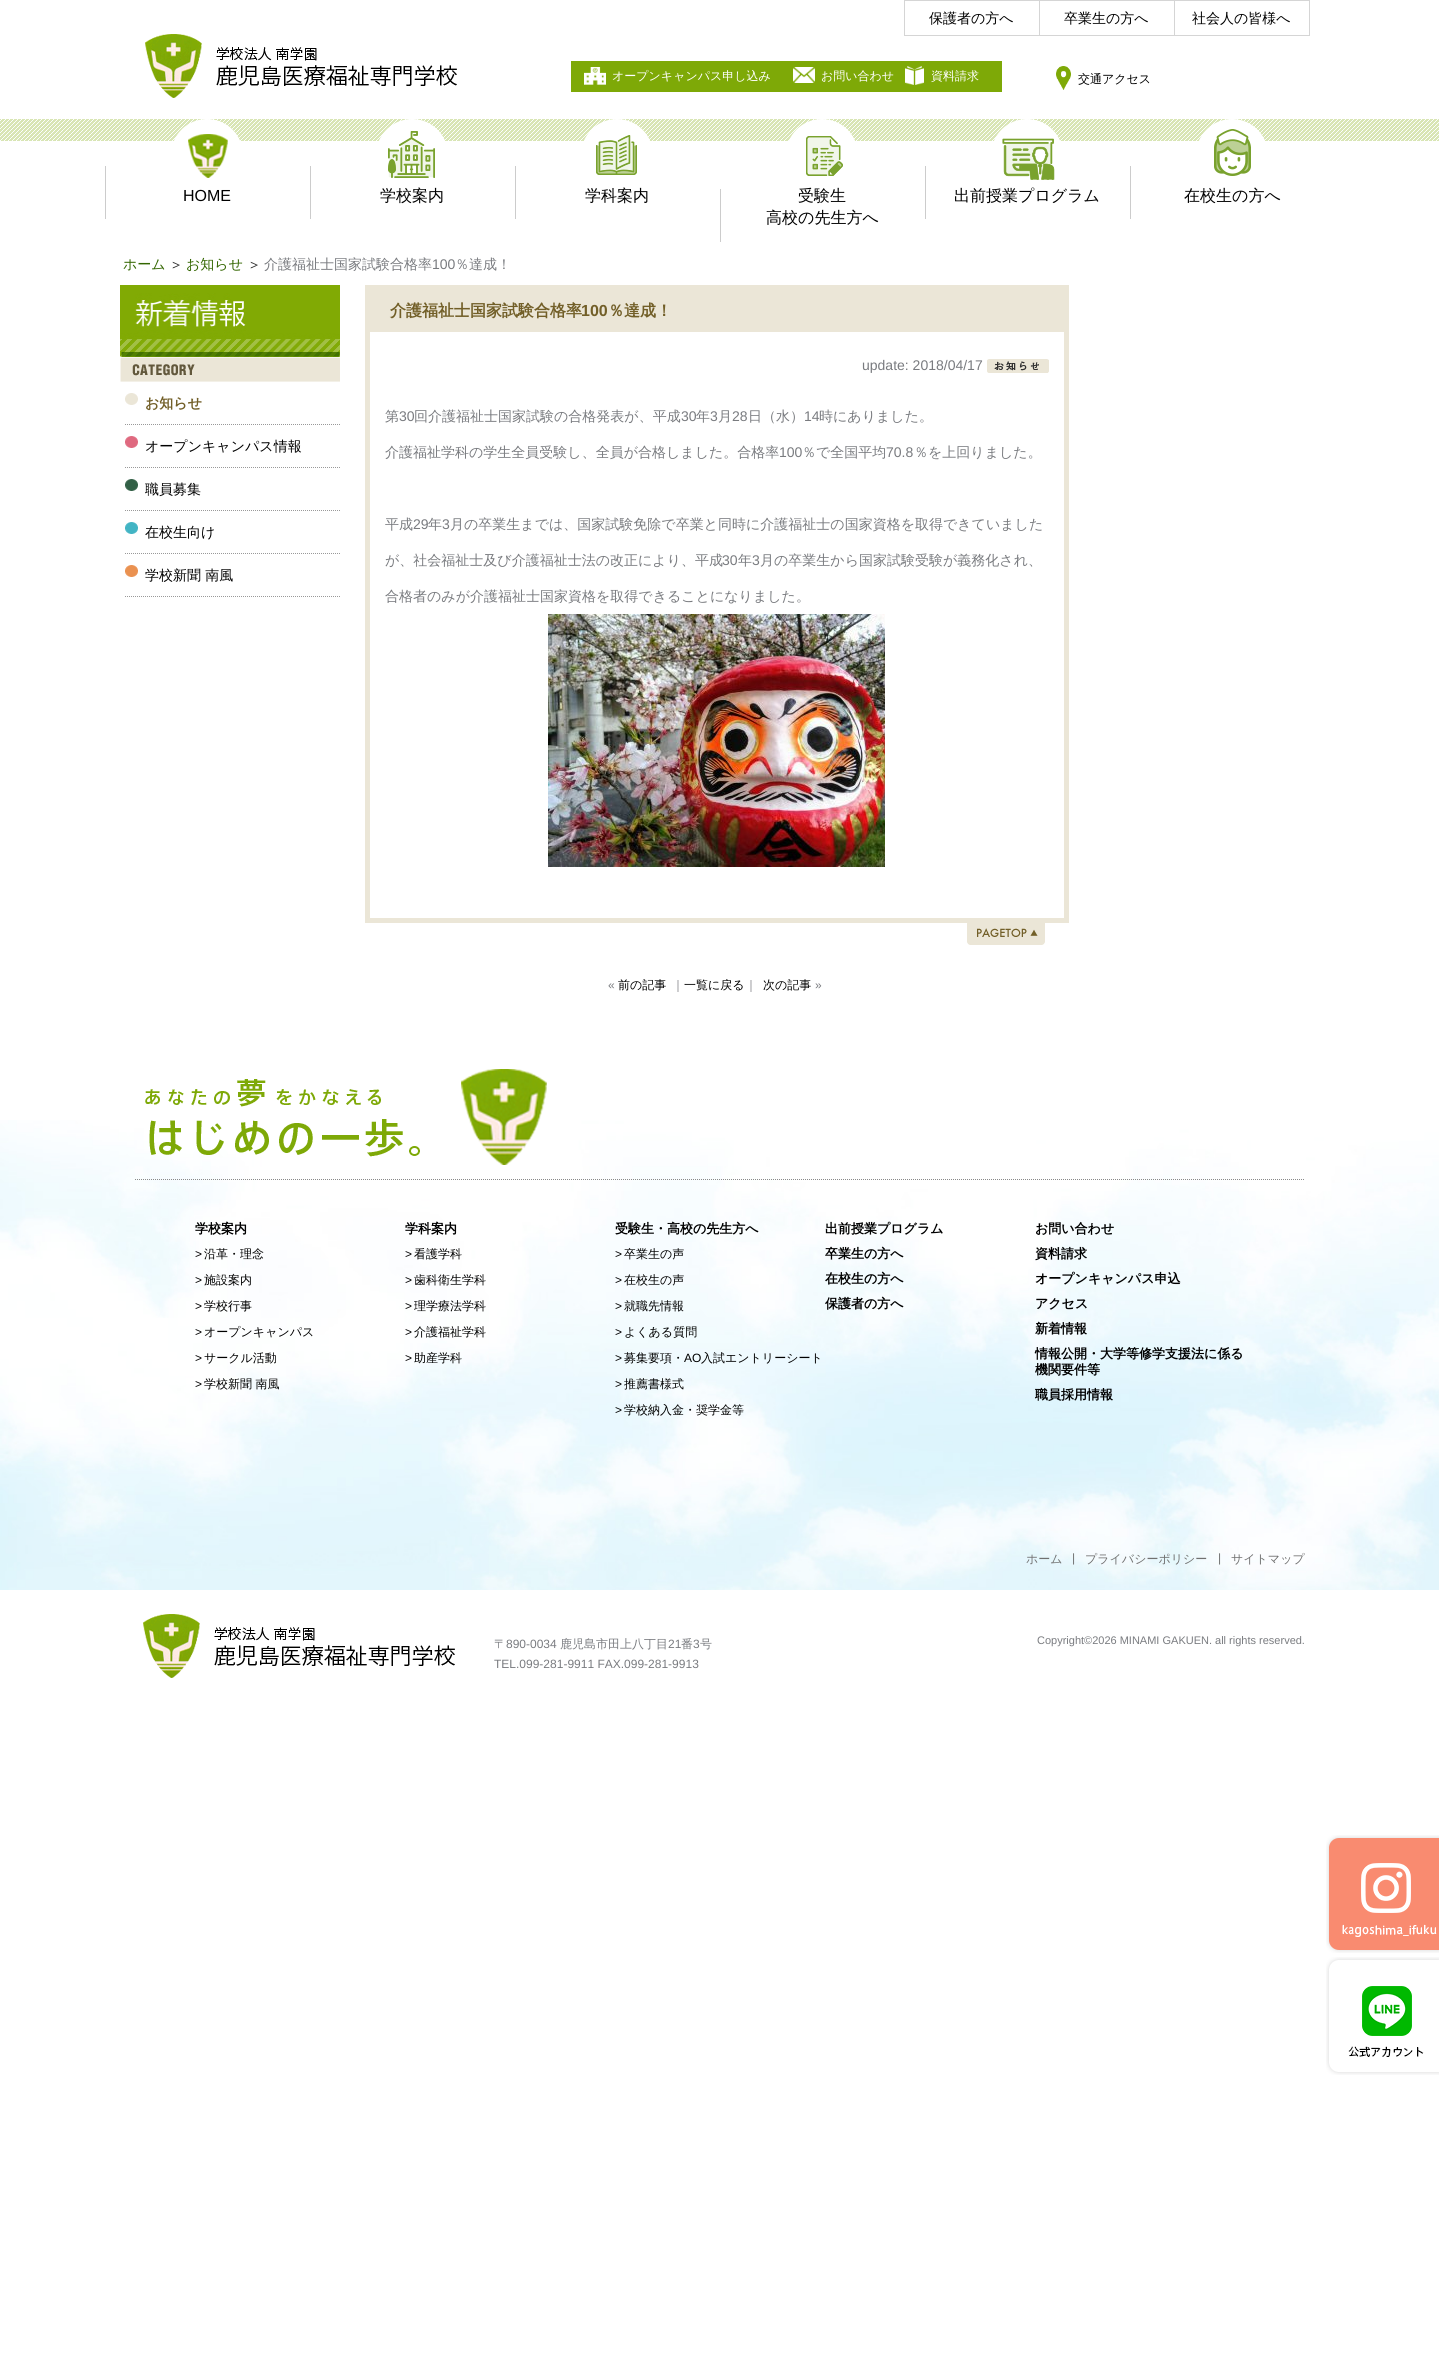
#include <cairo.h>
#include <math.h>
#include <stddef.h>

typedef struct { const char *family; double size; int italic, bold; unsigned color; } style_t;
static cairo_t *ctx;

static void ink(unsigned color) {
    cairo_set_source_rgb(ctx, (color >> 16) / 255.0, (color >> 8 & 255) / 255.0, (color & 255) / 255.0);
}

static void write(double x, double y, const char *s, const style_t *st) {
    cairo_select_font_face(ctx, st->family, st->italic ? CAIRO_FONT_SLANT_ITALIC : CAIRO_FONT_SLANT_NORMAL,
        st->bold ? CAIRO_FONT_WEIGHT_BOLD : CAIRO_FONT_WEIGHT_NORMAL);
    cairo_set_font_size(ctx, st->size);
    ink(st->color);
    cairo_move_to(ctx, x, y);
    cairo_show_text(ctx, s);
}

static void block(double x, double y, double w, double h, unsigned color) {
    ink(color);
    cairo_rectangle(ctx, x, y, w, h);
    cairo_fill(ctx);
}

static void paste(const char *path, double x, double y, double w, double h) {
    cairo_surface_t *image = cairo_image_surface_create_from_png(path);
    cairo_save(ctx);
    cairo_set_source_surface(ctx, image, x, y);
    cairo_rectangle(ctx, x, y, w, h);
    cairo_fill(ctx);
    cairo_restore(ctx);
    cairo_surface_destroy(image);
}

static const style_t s1 = {"WenQuanYi Zen Hei Medium", 14, 0, 0, 0x000000};
static const style_t s2 = {"WenQuanYi Zen Hei Medium", 12, 0, 0, 0xffffff};
static const style_t s3 = {"WenQuanYi Zen Hei Medium", 12, 0, 0, 0x000000};
static const style_t s4 = {"Liberation Sans", 16, 0, 0, 0x000000};
static const style_t s5 = {"WenQuanYi Zen Hei Medium", 16, 0, 0, 0x000000};
static const style_t s6 = {"WenQuanYi Zen Hei Medium", 14, 0, 0, 0x336600};
static const style_t s7 = {"WenQuanYi Zen Hei Medium", 14, 0, 0, 0x797b7f};
static const style_t s8 = {"Liberation Sans", 14, 0, 0, 0x797b7f};
static const style_t s9 = {"WenQuanYi Zen Hei", 14, 0, 1, 0x725f28};
static const style_t s10 = {"WenQuanYi Zen Hei", 16, 0, 1, 0x725f28};
static const style_t s11 = {"Liberation Sans", 16, 0, 1, 0x725f28};
static const style_t s12 = {"Liberation Sans", 12, 0, 0, 0x797b7f};
static const style_t s13 = {"WenQuanYi Zen Hei Medium", 12, 0, 0, 0x797b7f};
static const style_t s14 = {"WenQuanYi Zen Hei", 13, 0, 1, 0x000000};
static const style_t s15 = {"Liberation Sans", 12, 0, 0, 0x000000};
static const style_t s16 = {"WenQuanYi Zen Hei Medium", 12, 0, 0, 0x707070};
static const style_t s17 = {"Liberation Sans", 12, 0, 0, 0x707070};
static const style_t s18 = {"Liberation Sans", 11, 0, 0, 0x797b7f};

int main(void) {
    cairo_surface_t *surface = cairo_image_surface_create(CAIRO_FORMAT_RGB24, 1439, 2360);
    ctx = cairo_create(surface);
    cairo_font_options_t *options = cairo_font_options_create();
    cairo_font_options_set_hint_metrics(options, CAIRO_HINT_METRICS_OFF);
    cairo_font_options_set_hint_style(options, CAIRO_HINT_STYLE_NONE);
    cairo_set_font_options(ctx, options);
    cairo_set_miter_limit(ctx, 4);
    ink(0xffffff);
    cairo_paint(ctx);
    block(904, 0, 406, 1, 0xd5d5d5);
    block(1309, 0, 1, 36, 0xd5d5d5);
    block(904, 35, 406, 1, 0xd5d5d5);
    block(904, 1, 1, 34, 0xd5d5d5);
    write(929, 23, "保護者の方へ", &s1);
    block(1039, 1, 1, 34, 0xd5d5d5);
    write(1064, 23, "卒業生の方へ", &s1);
    block(1174, 1, 1, 34, 0xd5d5d5);
    write(1192, 23, "社会人の皆様へ", &s1);
    paste("pic1.png", 145, 34, 312, 64);
    block(571, 61, 431, 31, 0x7ea907);
    paste("pic2.png", 584, 67, 22, 18);
    write(612, 80, "オープンキャンパス申し込み", &s2);
    paste("pic3.png", 793, 67, 22, 16);
    write(821, 80, "お問い合わせ", &s2);
    paste("pic4.png", 905, 66, 19, 19);
    write(931, 80, "資料請求", &s2);
    paste("pic5.png", 1056, 66, 15, 24);
    write(1078, 83, "交通アクセス", &s3);
    paste("pic6.png", 1326, 1835, 113, 118);
    paste("pic7.png", 1326, 1957, 113, 118);
    paste("pic8.png", 0, 119, 1439, 22);
    paste("pic9.png", 174, 119, 66, 59);
    block(105, 166, 1, 53, 0xcccccc);
    write(183, 201, "HOME", &s4);
    paste("pic10.png", 379, 119, 66, 59);
    block(310, 166, 1, 53, 0xcccccc);
    write(380, 201, "学校案内", &s5);
    paste("pic11.png", 584, 119, 66, 56);
    block(515, 166, 1, 53, 0xcccccc);
    write(585, 201, "学科案内", &s5);
    paste("pic12.png", 789, 119, 66, 57);
    block(720, 189, 1, 53, 0xcccccc);
    write(798, 201, "受験生", &s5);
    write(766, 223, "高校の先生方へ", &s5);
    paste("pic13.png", 994, 119, 66, 61);
    block(925, 166, 1, 53, 0xcccccc);
    write(954, 201, "出前授業プログラム", &s5);
    paste("pic14.png", 1199, 119, 66, 57);
    block(1130, 166, 1, 53, 0xcccccc);
    write(1184, 201, "在校生の方へ", &s5);
    write(123, 269, "ホーム", &s6);
    paste("pic15.png", 172, 261, 8, 8);
    write(186, 269, "お知らせ", &s6);
    paste("pic15.png", 250, 261, 8, 8);
    write(264, 269, "介護福祉士国家試験合格率", &s7);
    write(432, 269, "100", &s8);
    write(455, 269, "％達成！", &s7);
    paste("pic16.png", 120, 285, 220, 72);
    paste("pic17.png", 120, 357, 220, 25);
    paste("pic18.png", 125, 393, 13, 12);
    cairo_new_path(ctx);
    cairo_move_to(ctx, 125, 424.5);
    cairo_line_to(ctx, 340, 424.5);
    ink(0x999999);
    cairo_set_line_width(ctx, 1);
    cairo_set_dash(ctx, (double[]){1, 1}, 2, 0);
    cairo_stroke(ctx);
    write(145, 408, "お知らせ", &s9);
    paste("pic19.png", 125, 436, 13, 12);
    cairo_new_path(ctx);
    cairo_move_to(ctx, 125, 467.5);
    cairo_line_to(ctx, 340, 467.5);
    ink(0x999999);
    cairo_stroke(ctx);
    write(145, 451, "オープンキャンパス情報", &s1);
    paste("pic20.png", 125, 479, 13, 12);
    cairo_new_path(ctx);
    cairo_move_to(ctx, 125, 510.5);
    cairo_line_to(ctx, 340, 510.5);
    ink(0x999999);
    cairo_stroke(ctx);
    write(145, 494, "職員募集", &s1);
    paste("pic21.png", 125, 522, 13, 12);
    cairo_new_path(ctx);
    cairo_move_to(ctx, 125, 553.5);
    cairo_line_to(ctx, 340, 553.5);
    ink(0x999999);
    cairo_stroke(ctx);
    write(145, 537, "在校生向け", &s1);
    paste("pic22.png", 125, 565, 13, 12);
    cairo_new_path(ctx);
    cairo_move_to(ctx, 125, 596.5);
    cairo_line_to(ctx, 340, 596.5);
    ink(0x999999);
    cairo_stroke(ctx);
    write(145, 580, "学校新聞 南風", &s1);
    cairo_rectangle(ctx, 367.5, 287.5, 699, 633);
    ink(0xebe6d7);
    cairo_set_line_width(ctx, 5);
    cairo_set_dash(ctx, NULL, 0, 0);
    cairo_stroke(ctx);
    block(370, 290, 694, 42, 0xebe6d7);
    write(390, 316, "介護福祉士国家試験合格率", &s10);
    write(581, 316, "100", &s11);
    write(608, 316, "％達成！", &s10);
    write(862, 370, "update: 2018/04/17", &s8);
    paste("pic23.png", 987, 359, 62, 14);
    write(385, 421, "第", &s7);
    write(399, 421, "30", &s8);
    write(414, 421, "回介護福祉士国家試験の合格発表が、平成", &s7);
    write(681, 421, "30", &s8);
    write(696, 421, "年", &s7);
    write(710, 421, "3", &s8);
    write(718, 421, "月", &s7);
    write(732, 421, "28", &s8);
    write(748, 421, "日（水）", &s7);
    write(804, 421, "14", &s8);
    write(819, 421, "時にありました。", &s7);
    write(385, 457, "介護福祉学科の学生全員受験し、全員が合格しました。合格率", &s7);
    write(779, 457, "100", &s8);
    write(802, 457, "％で全国平均", &s7);
    write(886, 457, "70.8", &s8);
    write(914, 457, "％を上回りました。", &s7);
    write(385, 529, "平成", &s7);
    write(413, 529, "29", &s8);
    write(428, 529, "年", &s7);
    write(442, 529, "3", &s8);
    write(450, 529, "月の卒業生までは、国家試験免除で卒業と同時に介護福祉士の国家資格を取得できていました", &s7);
    write(385, 565, "が、社会福祉士及び介護福祉士法の改正により、平成", &s7);
    write(722, 565, "30", &s8);
    write(738, 565, "年", &s7);
    write(752, 565, "3", &s8);
    write(760, 565, "月の卒業生から国家試験受験が義務化され、", &s7);
    write(385, 601, "合格者のみが介護福祉士国家資格を取得できることになりました。", &s7);
    paste("pic24.png", 548, 614, 337, 253);
    paste("pic25.png", 967, 923, 78, 22);
    write(608, 989, "«", &s12);
    write(618, 989, "前の記事", &s3);
    write(672, 989, "｜", &s13);
    write(684, 989, "一覧に戻る", &s3);
    write(745, 989, "｜", &s13);
    write(763, 989, "次の記事", &s3);
    write(815, 989, "»", &s12);
    paste("pic26.png", 0, 1120, 1439, 470);
    paste("pic27.png", 145, 1069, 402, 96);
    cairo_new_path(ctx);
    cairo_move_to(ctx, 135, 1179.5);
    cairo_line_to(ctx, 1305, 1179.5);
    ink(0x898989);
    cairo_set_line_width(ctx, 1);
    cairo_set_dash(ctx, (double[]){1, 1}, 2, 0);
    cairo_stroke(ctx);
    write(195, 1233, "学校案内", &s14);
    write(195, 1258, ">", &s15);
    write(204, 1258, "沿革・理念", &s3);
    write(195, 1284, ">", &s15);
    write(204, 1284, "施設案内", &s3);
    write(195, 1310, ">", &s15);
    write(204, 1310, "学校行事", &s3);
    write(195, 1336, ">", &s15);
    write(204, 1336, "オープンキャンパス", &s3);
    write(195, 1362, ">", &s15);
    write(204, 1362, "サークル活動", &s3);
    write(195, 1388, ">", &s15);
    write(204, 1388, "学校新聞 南風", &s3);
    write(405, 1233, "学科案内", &s14);
    write(405, 1258, ">", &s15);
    write(414, 1258, "看護学科", &s3);
    write(405, 1284, ">", &s15);
    write(414, 1284, "歯科衛生学科", &s3);
    write(405, 1310, ">", &s15);
    write(414, 1310, "理学療法学科", &s3);
    write(405, 1336, ">", &s15);
    write(414, 1336, "介護福祉学科", &s3);
    write(405, 1362, ">", &s15);
    write(414, 1362, "助産学科", &s3);
    write(615, 1233, "受験生・高校の先生方へ", &s14);
    write(615, 1258, ">", &s15);
    write(624, 1258, "卒業生の声", &s3);
    write(615, 1284, ">", &s15);
    write(624, 1284, "在校生の声", &s3);
    write(615, 1310, ">", &s15);
    write(624, 1310, "就職先情報", &s3);
    write(615, 1336, ">", &s15);
    write(624, 1336, "よくある質問", &s3);
    write(615, 1362, ">", &s15);
    write(624, 1362, "募集要項・", &s3);
    write(684, 1362, "AO", &s15);
    write(701, 1362, "入試エントリーシート", &s3);
    write(615, 1388, ">", &s15);
    write(624, 1388, "推薦書様式", &s3);
    write(615, 1414, ">", &s15);
    write(624, 1414, "学校納入金・奨学金等", &s3);
    write(825, 1233, "出前授業プログラム", &s14);
    write(825, 1258, "卒業生の方へ", &s14);
    write(825, 1283, "在校生の方へ", &s14);
    write(825, 1308, "保護者の方へ", &s14);
    write(1035, 1233, "お問い合わせ", &s14);
    write(1035, 1258, "資料請求", &s14);
    write(1035, 1283, "オープンキャンパス申込", &s14);
    write(1035, 1308, "アクセス", &s14);
    write(1035, 1333, "新着情報", &s14);
    write(1035, 1358, "情報公開・大学等修学支援法に係る", &s14);
    write(1035, 1374, "機関要件等", &s14);
    write(1035, 1399, "職員採用情報", &s14);
    write(1026, 1563, "ホーム", &s16);
    write(1072, 1562, "|", &s17);
    write(1085, 1563, "プライバシーポリシー", &s16);
    write(1218, 1562, "|", &s17);
    write(1231, 1563, "サイトマップ", &s16);
    paste("pic1.png", 143, 1614, 312, 64);
    write(494, 1648, "〒", &s13);
    write(506, 1648, "890-0034", &s12);
    write(560, 1648, "鹿児島市田上八丁目", &s13);
    write(668, 1648, "21", &s12);
    write(681, 1648, "番", &s13);
    write(693, 1648, "3", &s12);
    write(700, 1648, "号", &s13);
    write(494, 1668, "TEL.099-281-9911 FAX.099-281-9913", &s12);
    write(1037, 1644, "Copyright©2026 MINAMI GAKUEN. all rights reserved.", &s18);
    cairo_surface_write_to_png(surface, "screenshot.png");
    cairo_font_options_destroy(options);
    cairo_destroy(ctx);
    cairo_surface_destroy(surface);
    return 0;
}
